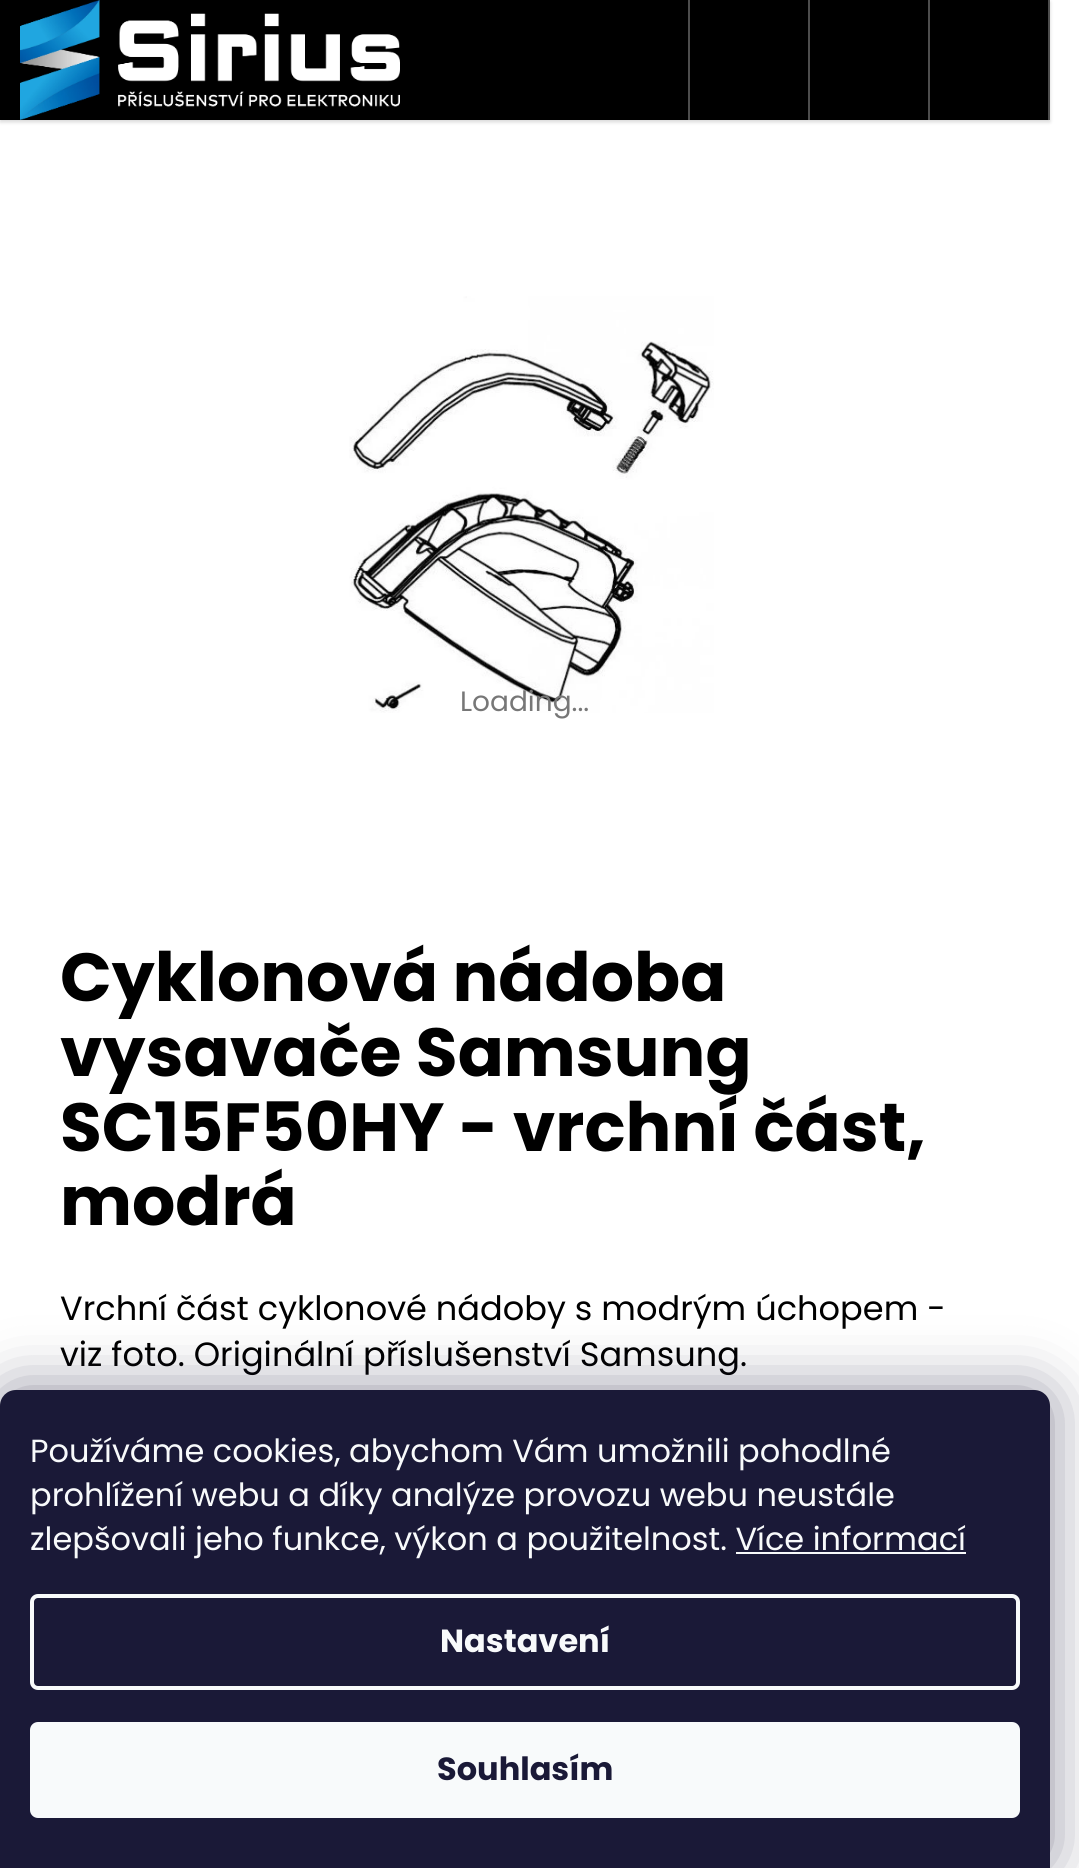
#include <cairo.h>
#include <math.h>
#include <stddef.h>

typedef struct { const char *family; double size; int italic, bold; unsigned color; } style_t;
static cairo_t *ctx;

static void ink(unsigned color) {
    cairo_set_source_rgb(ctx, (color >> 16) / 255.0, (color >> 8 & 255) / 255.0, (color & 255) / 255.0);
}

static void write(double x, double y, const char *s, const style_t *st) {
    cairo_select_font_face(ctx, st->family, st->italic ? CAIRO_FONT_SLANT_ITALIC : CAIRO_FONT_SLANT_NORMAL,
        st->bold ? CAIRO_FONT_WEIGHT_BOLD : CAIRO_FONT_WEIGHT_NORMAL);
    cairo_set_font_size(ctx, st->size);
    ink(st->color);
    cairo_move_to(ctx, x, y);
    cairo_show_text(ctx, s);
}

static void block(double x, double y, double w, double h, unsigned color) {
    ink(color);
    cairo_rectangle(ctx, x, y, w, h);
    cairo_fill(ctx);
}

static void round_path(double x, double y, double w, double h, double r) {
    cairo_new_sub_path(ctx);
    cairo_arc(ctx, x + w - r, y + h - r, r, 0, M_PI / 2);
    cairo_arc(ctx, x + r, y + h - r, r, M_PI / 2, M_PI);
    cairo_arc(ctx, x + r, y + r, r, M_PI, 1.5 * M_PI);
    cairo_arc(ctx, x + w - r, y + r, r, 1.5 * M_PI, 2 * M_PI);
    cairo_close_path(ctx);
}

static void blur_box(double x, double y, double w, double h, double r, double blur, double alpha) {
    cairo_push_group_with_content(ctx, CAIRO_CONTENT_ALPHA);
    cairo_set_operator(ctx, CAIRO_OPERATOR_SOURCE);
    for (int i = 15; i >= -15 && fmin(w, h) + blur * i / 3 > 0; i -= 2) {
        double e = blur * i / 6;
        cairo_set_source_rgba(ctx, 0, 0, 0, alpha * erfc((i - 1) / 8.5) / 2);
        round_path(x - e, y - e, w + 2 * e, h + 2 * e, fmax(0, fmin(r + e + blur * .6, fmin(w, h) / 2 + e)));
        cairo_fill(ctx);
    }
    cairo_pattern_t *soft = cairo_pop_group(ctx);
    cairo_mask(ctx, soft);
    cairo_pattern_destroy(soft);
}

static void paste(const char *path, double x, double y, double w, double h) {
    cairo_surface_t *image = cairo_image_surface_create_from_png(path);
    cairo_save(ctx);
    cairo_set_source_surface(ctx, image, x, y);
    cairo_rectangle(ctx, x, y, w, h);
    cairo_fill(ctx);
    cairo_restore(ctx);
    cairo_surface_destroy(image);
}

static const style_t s1 = {"Poppins", 28, 0, 0, 0x777777};
static const style_t s2 = {"Poppins", 68, 0, 1, 0x000000};
static const style_t s3 = {"Poppins", 33.6, 0, 0, 0x000000};
static const style_t s4 = {"Poppins", 32, 0, 0, 0xf8fafb};
static const style_t s5 = {"Poppins", 32, 0, 1, 0xf8fafb};
static const style_t s6 = {"Poppins", 32, 0, 1, 0x1a1937};

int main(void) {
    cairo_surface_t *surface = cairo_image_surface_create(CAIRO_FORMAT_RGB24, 1079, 1868);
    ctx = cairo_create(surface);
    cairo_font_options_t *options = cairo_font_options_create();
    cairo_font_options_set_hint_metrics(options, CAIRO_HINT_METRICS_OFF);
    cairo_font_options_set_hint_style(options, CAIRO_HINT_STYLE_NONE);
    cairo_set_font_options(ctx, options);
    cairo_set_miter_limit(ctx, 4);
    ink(0xffffff);
    cairo_paint(ctx);
    ink(0x000000);
    blur_box(0, 2, 1050, 120, 0, 2, 0.16);
    block(0, 0, 1048, 120, 0x000000);
    paste("pic1.png", 20, 0, 380, 120);
    block(1048, 0, 2, 120, 0x4d4d4d);
    block(688, 0, 2, 120, 0x4d4d4d);
    block(808, 0, 2, 120, 0x4d4d4d);
    block(928, 0, 2, 120, 0x4d4d4d);
    paste("pic2.png", 349, 296, 365, 417);
    write(460, 711, "Loading...", &s1);
    write(60, 1001, "Cyklonová nádoba", &s2);
    write(60, 1076, "vysavače Samsung", &s2);
    write(60, 1151, "SC15F50HY - vrchní část,", &s2);
    write(60, 1225, "modrá", &s2);
    write(60, 1320, "Vrchní část cyklonové nádoby s modrým úchopem -", &s3);
    write(60, 1366, "viz foto. Originální příslušenství Samsung.", &s3);
    ink(0x1b1939);
    blur_box(0, 1390, 1050, 478, 16, 30, 0.5);
    ink(0x1a1937);
    cairo_new_path(ctx);
    cairo_move_to(ctx, 16, 1390);
    cairo_line_to(ctx, 1034, 1390);
    cairo_curve_to(ctx, 1043, 1390, 1050, 1397, 1050, 1406);
    cairo_line_to(ctx, 1050, 1868);
    cairo_line_to(ctx, 0, 1868);
    cairo_line_to(ctx, 0, 1406);
    cairo_curve_to(ctx, 0, 1397, 7, 1390, 16, 1390);
    cairo_close_path(ctx);
    cairo_fill(ctx);
    write(30, 1462, "Používáme cookies, abychom Vám umožnili pohodlné", &s4);
    write(30, 1506, "prohlížení webu a díky analýze provozu webu neustále", &s4);
    write(30, 1550, "zlepšovali jeho funkce, výkon a použitelnost. Více informací", &s4);
    block(736, 1552, 230, 2, 0xf8fafb);
    round_path(32, 1596, 986, 92, 6);
    cairo_set_line_width(ctx, 4);
    cairo_stroke(ctx);
    write(440, 1652, "Nastavení", &s5);
    round_path(30, 1722, 990, 96, 8);
    cairo_fill(ctx);
    write(437, 1780, "Souhlasím", &s6);
    cairo_surface_write_to_png(surface, "screenshot.png");
    cairo_font_options_destroy(options);
    cairo_destroy(ctx);
    cairo_surface_destroy(surface);
    return 0;
}
